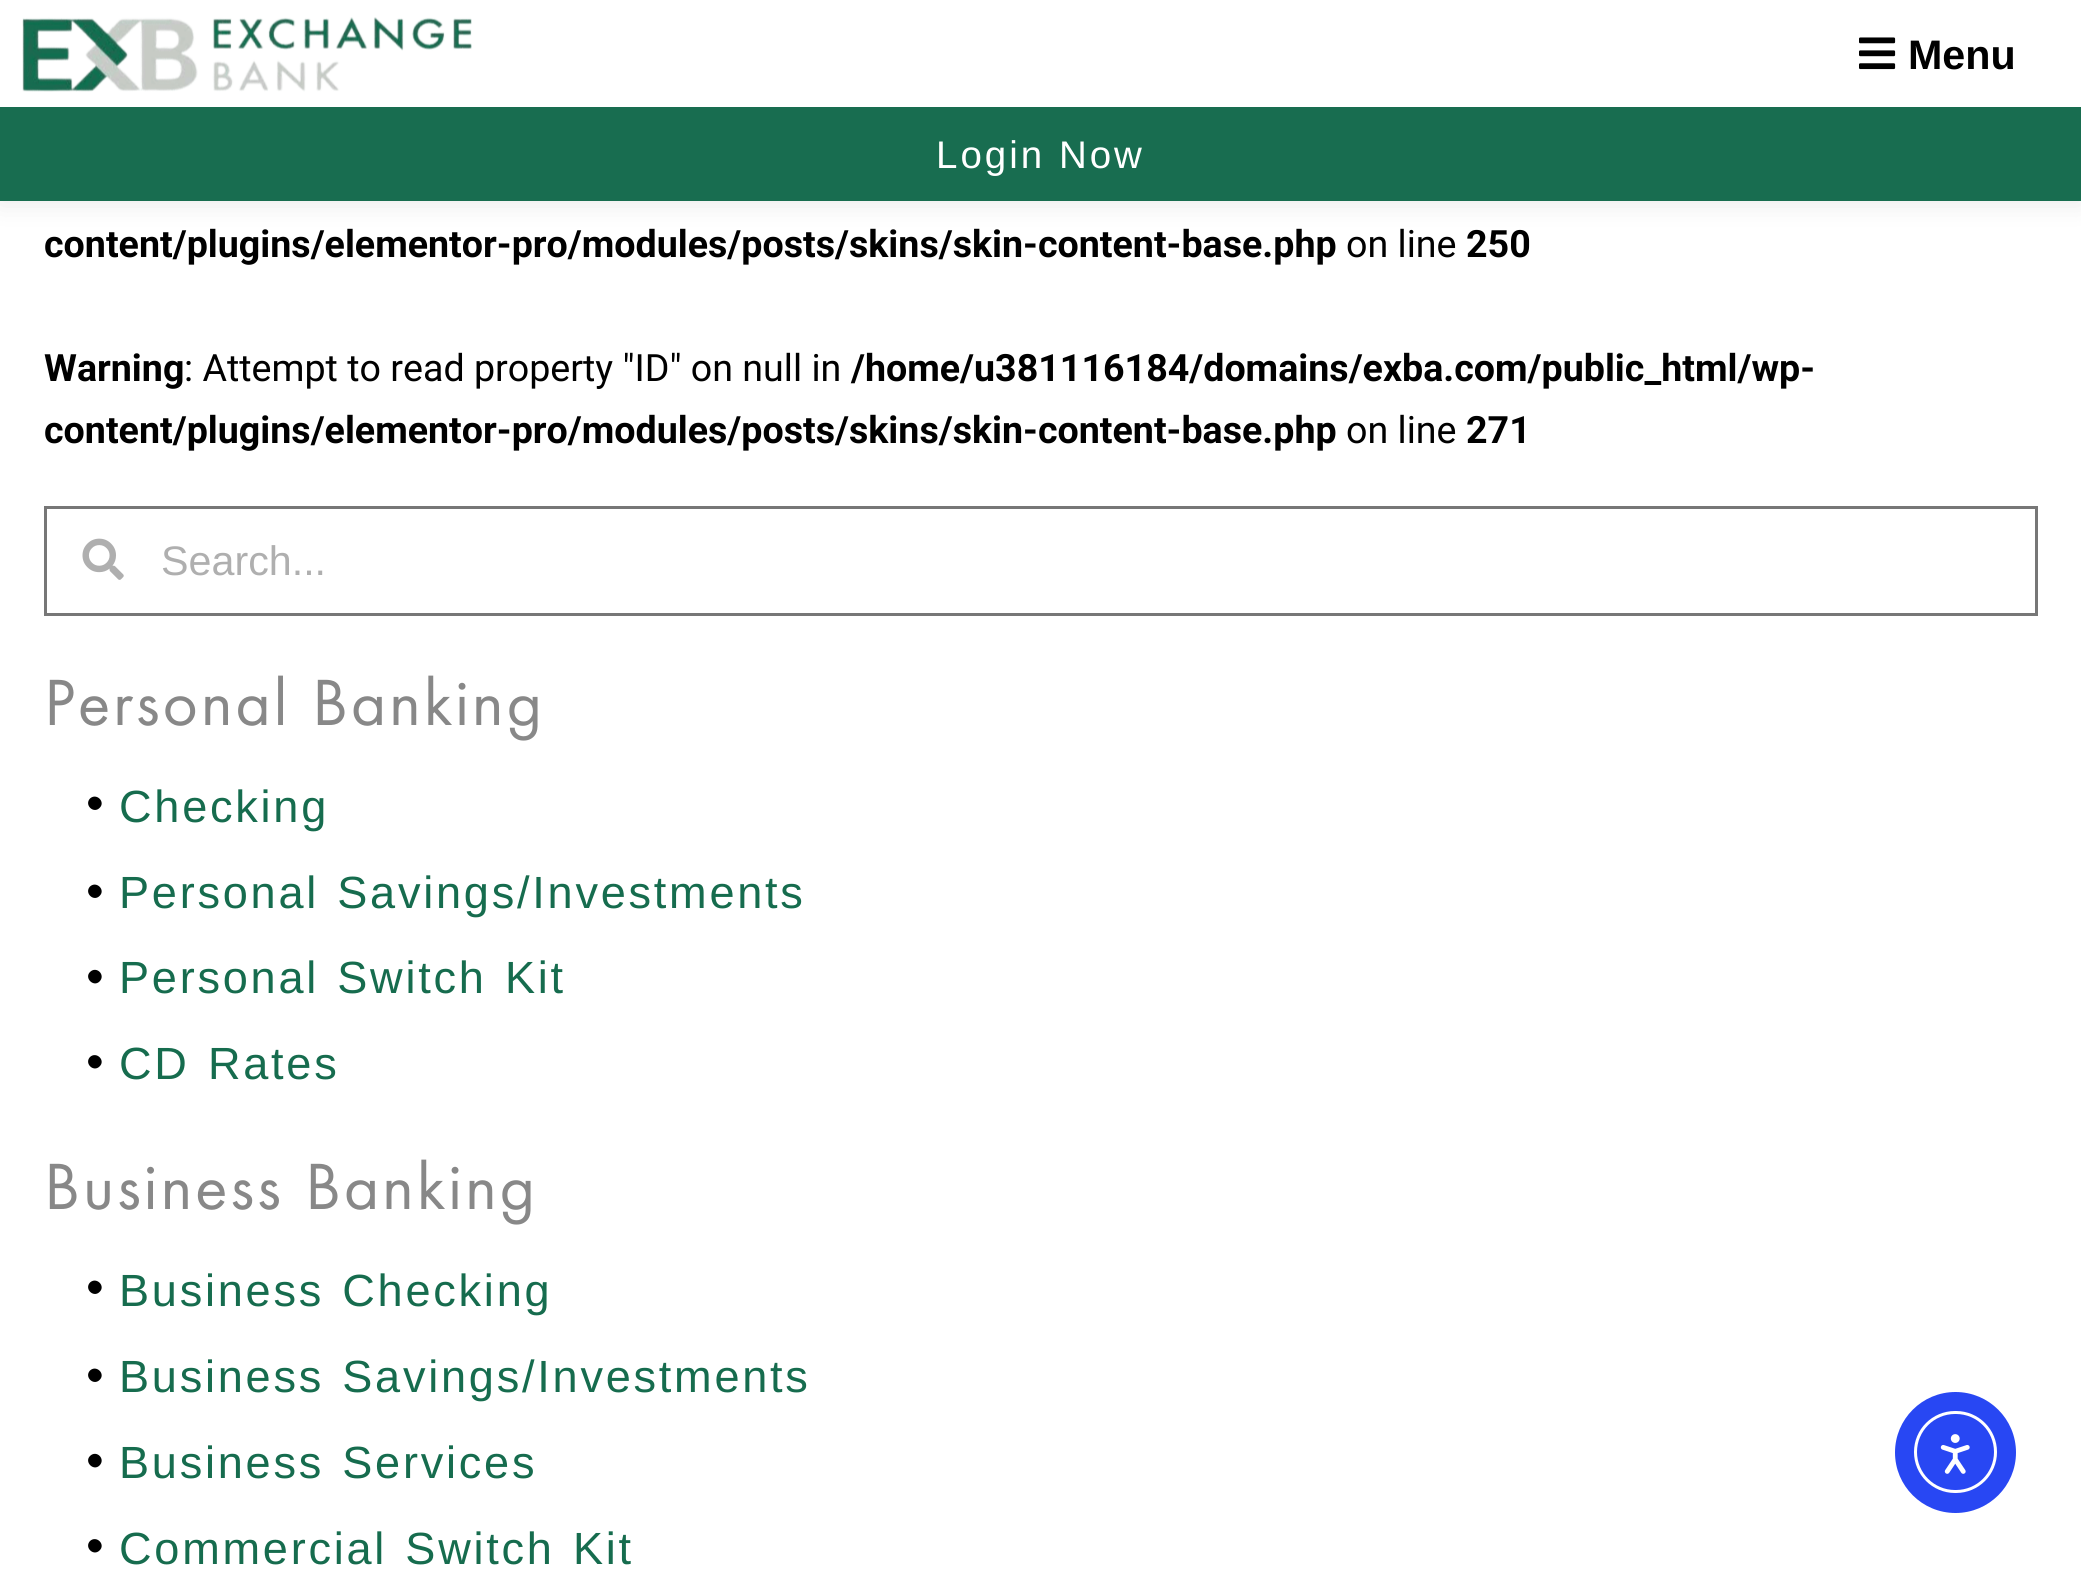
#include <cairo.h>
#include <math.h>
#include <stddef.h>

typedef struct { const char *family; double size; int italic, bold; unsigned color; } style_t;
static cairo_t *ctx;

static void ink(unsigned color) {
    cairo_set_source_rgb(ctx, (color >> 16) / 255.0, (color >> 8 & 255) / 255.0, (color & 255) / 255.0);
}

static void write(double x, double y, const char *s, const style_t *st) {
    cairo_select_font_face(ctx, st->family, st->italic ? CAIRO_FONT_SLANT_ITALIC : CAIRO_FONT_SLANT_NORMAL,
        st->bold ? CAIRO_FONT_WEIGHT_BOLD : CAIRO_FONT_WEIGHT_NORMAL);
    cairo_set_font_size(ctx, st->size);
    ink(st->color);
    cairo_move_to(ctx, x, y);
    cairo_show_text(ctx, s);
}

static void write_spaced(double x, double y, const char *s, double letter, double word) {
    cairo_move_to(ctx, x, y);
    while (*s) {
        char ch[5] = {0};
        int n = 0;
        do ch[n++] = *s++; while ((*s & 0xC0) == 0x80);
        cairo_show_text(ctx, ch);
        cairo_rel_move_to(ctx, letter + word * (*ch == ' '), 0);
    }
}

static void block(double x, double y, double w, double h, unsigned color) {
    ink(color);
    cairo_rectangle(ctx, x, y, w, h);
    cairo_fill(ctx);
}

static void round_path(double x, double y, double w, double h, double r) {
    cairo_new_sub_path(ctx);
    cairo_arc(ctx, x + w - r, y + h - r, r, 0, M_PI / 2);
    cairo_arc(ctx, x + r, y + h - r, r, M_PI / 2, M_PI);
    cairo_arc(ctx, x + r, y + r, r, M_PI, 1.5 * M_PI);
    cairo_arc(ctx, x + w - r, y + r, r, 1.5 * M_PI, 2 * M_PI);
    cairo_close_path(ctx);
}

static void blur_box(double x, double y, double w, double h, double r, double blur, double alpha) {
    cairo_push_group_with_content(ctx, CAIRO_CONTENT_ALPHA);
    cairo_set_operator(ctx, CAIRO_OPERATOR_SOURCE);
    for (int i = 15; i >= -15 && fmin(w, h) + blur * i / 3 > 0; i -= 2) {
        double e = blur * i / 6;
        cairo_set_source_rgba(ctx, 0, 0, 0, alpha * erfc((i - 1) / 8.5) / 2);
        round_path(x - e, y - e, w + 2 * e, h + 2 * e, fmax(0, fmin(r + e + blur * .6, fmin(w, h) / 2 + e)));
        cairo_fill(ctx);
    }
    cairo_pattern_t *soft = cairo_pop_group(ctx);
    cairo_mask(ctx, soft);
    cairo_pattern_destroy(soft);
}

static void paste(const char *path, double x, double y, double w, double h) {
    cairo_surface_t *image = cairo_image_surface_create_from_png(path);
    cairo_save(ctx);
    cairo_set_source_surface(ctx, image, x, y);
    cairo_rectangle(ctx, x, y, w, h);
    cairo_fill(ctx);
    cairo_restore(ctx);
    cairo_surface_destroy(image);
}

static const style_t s1 = {"Liberation Sans", 41.25, 0, 1, 0x000000};
static const style_t s2 = {"Roboto", 37.6, 0, 1, 0x000000};
static const style_t s3 = {"Roboto", 37.6, 0, 0, 0x000000};
static const style_t s4 = {"Liberation Sans", 41.25, 0, 0, 0xafafaf};

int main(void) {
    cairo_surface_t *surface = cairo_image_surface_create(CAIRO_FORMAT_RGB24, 2081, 1577);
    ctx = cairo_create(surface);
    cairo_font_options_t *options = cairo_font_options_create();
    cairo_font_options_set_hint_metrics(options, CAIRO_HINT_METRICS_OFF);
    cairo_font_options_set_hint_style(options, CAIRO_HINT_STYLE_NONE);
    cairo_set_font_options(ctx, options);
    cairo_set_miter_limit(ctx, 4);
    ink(0xffffff);
    cairo_paint(ctx);
    ink(0x000000);
    blur_box(0, 0, 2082, 201, 0, 14, 0.1);
    block(0, 0, 2081, 107, 0xffffff);
    paste("pic1.png", 22, 17, 450, 75);
    paste("pic2.png", 1859, 37, 37, 33);
    write(1908, 69, "Menu", &s1);
    block(0, 107, 2081, 94, 0x186d50);
    cairo_select_font_face(ctx, "Liberation Sans", CAIRO_FONT_SLANT_NORMAL, CAIRO_FONT_WEIGHT_NORMAL);
    cairo_set_font_size(ctx, 38.5);
    ink(0xffffff);
    write_spaced(936, 168, "Login Now", 3, 0);
    write(44, 257, "content/plugins/elementor-pro/modules/posts/skins/skin-content-base.php", &s2);
    write(1346, 257, "on line", &s3);
    write(1466, 257, "250", &s2);
    write(44, 381, "Warning", &s2);
    write(184, 381, ": Attempt to read property \"ID\" on null in", &s3);
    write(851, 381, "/home/u381116184/domains/exba.com/public_html/wp-", &s2);
    write(44, 443, "content/plugins/elementor-pro/modules/posts/skins/skin-content-base.php", &s2);
    write(1346, 443, "on line", &s3);
    write(1466, 443, "271", &s2);
    cairo_rectangle(ctx, 45.5, 507.5, 1991, 107);
    ink(0x777777);
    cairo_set_line_width(ctx, 3);
    cairo_stroke(ctx);
    paste("pic3.png", 82, 538, 42, 42);
    write(161, 575, "Search...", &s4);
    cairo_select_font_face(ctx, "Futura PT", CAIRO_FONT_SLANT_NORMAL, CAIRO_FONT_WEIGHT_NORMAL);
    cairo_set_font_size(ctx, 67.75);
    ink(0x888888);
    write_spaced(44, 725, "Personal Banking", 2.75, 3);
    ink(0x000000);
    cairo_new_path(ctx);
    cairo_move_to(ctx, 90, 798.5);
    cairo_curve_to(ctx, 96.5, 792.5, 106, 802, 99.5, 808);
    cairo_curve_to(ctx, 93.5, 814, 84, 805, 90, 798.5);
    cairo_close_path(ctx);
    cairo_fill(ctx);
    cairo_select_font_face(ctx, "Liberation Sans", CAIRO_FONT_SLANT_NORMAL, CAIRO_FONT_WEIGHT_NORMAL);
    cairo_set_font_size(ctx, 45.1);
    ink(0x166c4e);
    write_spaced(119, 822, "Checking", 2.75, 0);
    ink(0x000000);
    cairo_new_path(ctx);
    cairo_move_to(ctx, 90, 886.5);
    cairo_curve_to(ctx, 96.5, 880.5, 106, 890, 99.5, 896);
    cairo_curve_to(ctx, 93.5, 902, 84, 893, 90, 886.5);
    cairo_close_path(ctx);
    cairo_fill(ctx);
    ink(0x166c4e);
    write_spaced(119, 908, "Personal Savings/Investments", 2.75, 3);
    ink(0x000000);
    cairo_new_path(ctx);
    cairo_move_to(ctx, 90, 972);
    cairo_curve_to(ctx, 96.5, 965.5, 106, 975, 99.5, 981.5);
    cairo_curve_to(ctx, 93.5, 987.5, 84, 978, 90, 972);
    cairo_close_path(ctx);
    cairo_fill(ctx);
    ink(0x166c4e);
    write_spaced(119, 993, "Personal Switch Kit", 2.75, 3);
    ink(0x000000);
    cairo_new_path(ctx);
    cairo_move_to(ctx, 90, 1057);
    cairo_curve_to(ctx, 96.5, 1051, 106, 1060.5, 99.5, 1066.5);
    cairo_curve_to(ctx, 93.5, 1072.5, 84, 1063.5, 90, 1057);
    cairo_close_path(ctx);
    cairo_fill(ctx);
    ink(0x166c4e);
    write_spaced(119, 1079, "CD Rates", 2.75, 3);
    cairo_select_font_face(ctx, "Futura PT", CAIRO_FONT_SLANT_NORMAL, CAIRO_FONT_WEIGHT_NORMAL);
    cairo_set_font_size(ctx, 67.75);
    ink(0x888888);
    write_spaced(44, 1209, "Business Banking", 2.75, 3);
    ink(0x000000);
    cairo_new_path(ctx);
    cairo_move_to(ctx, 90, 1282.5);
    cairo_curve_to(ctx, 96.5, 1276.5, 106, 1286, 99.5, 1292);
    cairo_curve_to(ctx, 93.5, 1298, 84, 1289, 90, 1282.5);
    cairo_close_path(ctx);
    cairo_fill(ctx);
    cairo_select_font_face(ctx, "Liberation Sans", CAIRO_FONT_SLANT_NORMAL, CAIRO_FONT_WEIGHT_NORMAL);
    cairo_set_font_size(ctx, 45.1);
    ink(0x166c4e);
    write_spaced(119, 1306, "Business Checking", 2.75, 3);
    ink(0x000000);
    cairo_new_path(ctx);
    cairo_move_to(ctx, 90, 1370.5);
    cairo_curve_to(ctx, 96.5, 1364.5, 106, 1374, 99.5, 1380);
    cairo_curve_to(ctx, 93.5, 1386, 84, 1377, 90, 1370.5);
    cairo_close_path(ctx);
    cairo_fill(ctx);
    ink(0x166c4e);
    write_spaced(119, 1392, "Business Savings/Investments", 2.75, 3);
    ink(0x000000);
    cairo_new_path(ctx);
    cairo_move_to(ctx, 90, 1456);
    cairo_curve_to(ctx, 96.5, 1449.5, 106, 1459, 99.5, 1465.5);
    cairo_curve_to(ctx, 93.5, 1471.5, 84, 1462, 90, 1456);
    cairo_close_path(ctx);
    cairo_fill(ctx);
    ink(0x166c4e);
    write_spaced(119, 1478, "Business Services", 2.75, 3);
    ink(0x000000);
    cairo_new_path(ctx);
    cairo_move_to(ctx, 90, 1541);
    cairo_curve_to(ctx, 96.5, 1535, 106, 1544.5, 99.5, 1550.5);
    cairo_curve_to(ctx, 93.5, 1556.5, 84, 1547.5, 90, 1541);
    cairo_close_path(ctx);
    cairo_fill(ctx);
    ink(0x166c4e);
    write_spaced(119, 1564, "Commercial Switch Kit", 2.75, 3);
    ink(0x2847f3);
    cairo_new_path(ctx);
    cairo_arc(ctx, 1955.5, 1452.5, 60.5, 0, 2 * M_PI);
    cairo_fill(ctx);
    round_path(1915.5, 1412.5, 80, 79, 39.5);
    ink(0xffffff);
    cairo_stroke(ctx);
    paste("pic4.png", 1940, 1434, 30, 40);
    cairo_surface_write_to_png(surface, "screenshot.png");
    cairo_font_options_destroy(options);
    cairo_destroy(ctx);
    cairo_surface_destroy(surface);
    return 0;
}
